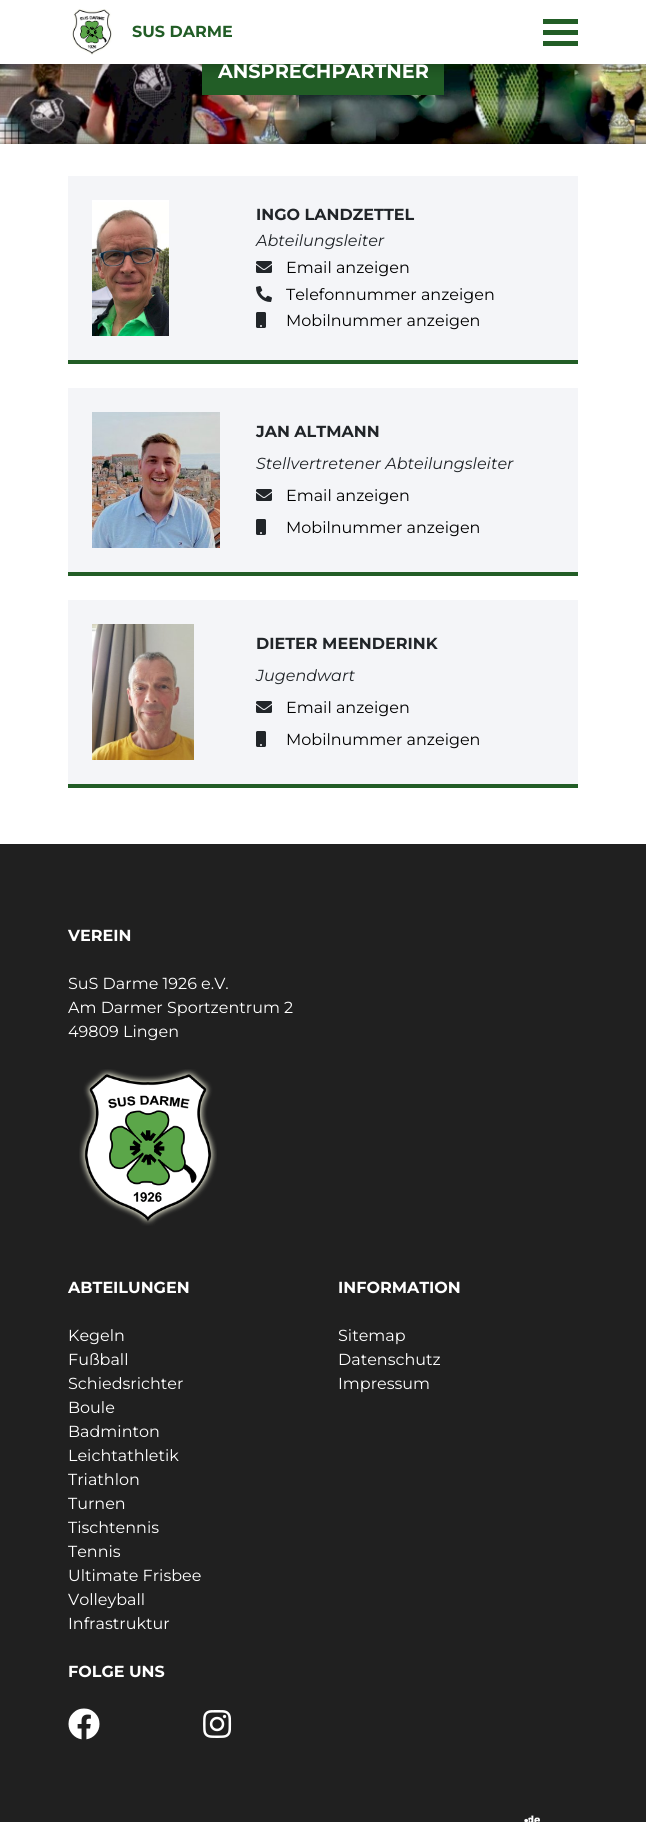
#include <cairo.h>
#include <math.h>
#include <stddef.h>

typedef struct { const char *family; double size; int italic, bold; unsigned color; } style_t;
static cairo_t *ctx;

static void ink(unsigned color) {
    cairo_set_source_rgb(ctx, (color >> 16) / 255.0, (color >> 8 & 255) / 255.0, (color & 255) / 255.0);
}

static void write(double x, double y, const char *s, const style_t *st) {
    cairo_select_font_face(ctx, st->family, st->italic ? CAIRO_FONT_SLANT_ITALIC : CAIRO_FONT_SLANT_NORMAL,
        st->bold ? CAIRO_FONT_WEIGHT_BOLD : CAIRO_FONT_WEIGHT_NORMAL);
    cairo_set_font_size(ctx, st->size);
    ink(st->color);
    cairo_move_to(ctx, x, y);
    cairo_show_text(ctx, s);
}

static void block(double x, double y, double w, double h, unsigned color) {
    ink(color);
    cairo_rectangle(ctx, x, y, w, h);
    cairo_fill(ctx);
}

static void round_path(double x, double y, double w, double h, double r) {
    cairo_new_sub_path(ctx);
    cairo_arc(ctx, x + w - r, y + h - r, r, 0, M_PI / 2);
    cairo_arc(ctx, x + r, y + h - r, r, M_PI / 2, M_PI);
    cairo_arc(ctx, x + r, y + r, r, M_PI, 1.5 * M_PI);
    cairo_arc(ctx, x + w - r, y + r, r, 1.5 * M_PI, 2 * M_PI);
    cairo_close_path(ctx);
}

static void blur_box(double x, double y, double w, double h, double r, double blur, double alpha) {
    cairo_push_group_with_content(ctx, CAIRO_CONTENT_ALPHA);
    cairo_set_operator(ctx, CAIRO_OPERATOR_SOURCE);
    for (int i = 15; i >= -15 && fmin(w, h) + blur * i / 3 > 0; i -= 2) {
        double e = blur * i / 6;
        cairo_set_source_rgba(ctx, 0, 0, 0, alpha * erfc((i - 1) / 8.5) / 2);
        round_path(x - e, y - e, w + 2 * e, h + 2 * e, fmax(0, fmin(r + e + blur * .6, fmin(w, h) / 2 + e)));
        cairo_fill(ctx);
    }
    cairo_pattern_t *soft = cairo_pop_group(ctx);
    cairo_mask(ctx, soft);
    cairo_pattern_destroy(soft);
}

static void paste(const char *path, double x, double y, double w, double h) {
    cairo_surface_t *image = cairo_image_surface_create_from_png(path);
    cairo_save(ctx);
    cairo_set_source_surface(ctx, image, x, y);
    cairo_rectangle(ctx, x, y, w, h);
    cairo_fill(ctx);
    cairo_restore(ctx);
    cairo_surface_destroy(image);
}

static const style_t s1 = {"Montserrat Thin", 16, 0, 0, 0x225d26};
static const style_t s2 = {"Montserrat Thin", 19.25, 0, 0, 0xffffff};
static const style_t s3 = {"Montserrat Thin", 16, 0, 0, 0x212529};
static const style_t s4 = {"Montserrat Thin", 16, 1, 0, 0x212529};
static const style_t s5 = {"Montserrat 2 Thin", 16, 0, 0, 0x000000};
static const style_t s6 = {"Montserrat Thin", 16, 0, 0, 0xffffff};
static const style_t s7 = {"Montserrat 2 Thin", 16, 0, 0, 0xffffff};

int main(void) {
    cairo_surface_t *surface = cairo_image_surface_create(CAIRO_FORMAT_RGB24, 646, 1822);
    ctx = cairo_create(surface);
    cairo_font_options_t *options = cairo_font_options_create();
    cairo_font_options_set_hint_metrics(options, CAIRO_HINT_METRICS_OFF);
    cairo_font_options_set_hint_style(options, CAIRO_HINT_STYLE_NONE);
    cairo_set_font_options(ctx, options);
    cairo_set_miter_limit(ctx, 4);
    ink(0xffffff);
    cairo_paint(ctx);
    paste("pic2.png", 0, 64, 646, 80);
    block(202, 64, 242, 31, 0x225d26);
    ink(0x000000);
    blur_box(-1, 0, 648, 66, 0, 7.5, 0.3);
    block(0, 0, 646, 64, 0xffffff);
    paste("pic1.png", 71, 9, 41, 46);
    write(132, 37, "SUS DARME", &s1);
    block(543, 19, 35, 5, 0x225d26);
    block(543, 30, 35, 5, 0x225d26);
    block(543, 41, 35, 5, 0x225d26);
    write(218, 78, "ANSPRECHPARTNER", &s2);
    block(68, 176, 510, 184, 0xf4f5f8);
    block(68, 360, 510, 4, 0x225d26);
    paste("pic3.png", 92, 200, 77, 136);
    write(256, 220, "INGO LANDZETTEL", &s3);
    write(256, 246, "Abteilungsleiter", &s4);
    paste("pic4.png", 256, 261, 16, 12);
    write(286, 273, "Email anzeigen", &s5);
    paste("pic5.png", 256, 286, 16, 16);
    write(286, 300, "Telefonnummer anzeigen", &s5);
    paste("pic6.png", 256, 312, 10, 16);
    write(286, 326, "Mobilnummer anzeigen", &s5);
    block(68, 388, 510, 184, 0xf4f5f8);
    block(68, 572, 510, 4, 0x225d26);
    paste("pic7.png", 92, 412, 128, 136);
    write(256, 437, "JAN ALTMANN", &s3);
    write(256, 469, "Stellvertretener Abteilungsleiter", &s4);
    paste("pic4.png", 256, 489, 16, 12);
    write(286, 501, "Email anzeigen", &s5);
    paste("pic6.png", 256, 519, 10, 16);
    write(286, 533, "Mobilnummer anzeigen", &s5);
    block(68, 600, 510, 184, 0xf4f5f8);
    block(68, 784, 510, 4, 0x225d26);
    paste("pic8.png", 92, 624, 102, 136);
    write(256, 649, "DIETER MEENDERINK", &s3);
    write(256, 681, "Jugendwart", &s4);
    paste("pic4.png", 256, 701, 16, 12);
    write(286, 713, "Email anzeigen", &s5);
    paste("pic6.png", 256, 731, 10, 16);
    write(286, 745, "Mobilnummer anzeigen", &s5);
    block(0, 844, 646, 978, 0x202020);
    write(68, 941, "VEREIN", &s6);
    write(68, 989, "SuS Darme 1926 e.V.", &s7);
    write(68, 1013, "Am Darmer Sportzentrum 2", &s7);
    write(68, 1037, "49809 Lingen", &s7);
    paste("pic9.png", 79, 1069, 138, 157);
    write(68, 1293, "ABTEILUNGEN", &s6);
    write(68, 1341, "Kegeln", &s7);
    write(68, 1365, "Fußball", &s7);
    write(68, 1389, "Schiedsrichter", &s7);
    write(68, 1413, "Boule", &s7);
    write(68, 1437, "Badminton", &s7);
    write(68, 1461, "Leichtathletik", &s7);
    write(68, 1485, "Triathlon", &s7);
    write(68, 1509, "Turnen", &s7);
    write(68, 1533, "Tischtennis", &s7);
    write(68, 1557, "Tennis", &s7);
    write(68, 1581, "Ultimate Frisbee", &s7);
    write(68, 1605, "Volleyball", &s7);
    write(68, 1629, "Infrastruktur", &s7);
    write(338, 1293, "INFORMATION", &s6);
    write(338, 1341, "Sitemap", &s7);
    write(338, 1365, "Datenschutz", &s7);
    write(338, 1389, "Impressum", &s7);
    write(68, 1677, "FOLGE UNS", &s6);
    paste("pic10.png", 68, 1708, 32, 32);
    paste("pic11.png", 203, 1710, 29, 28);
    paste("pic12.png", 524, 1815, 16, 7);
    cairo_surface_write_to_png(surface, "screenshot.png");
    cairo_font_options_destroy(options);
    cairo_destroy(ctx);
    cairo_surface_destroy(surface);
    return 0;
}
